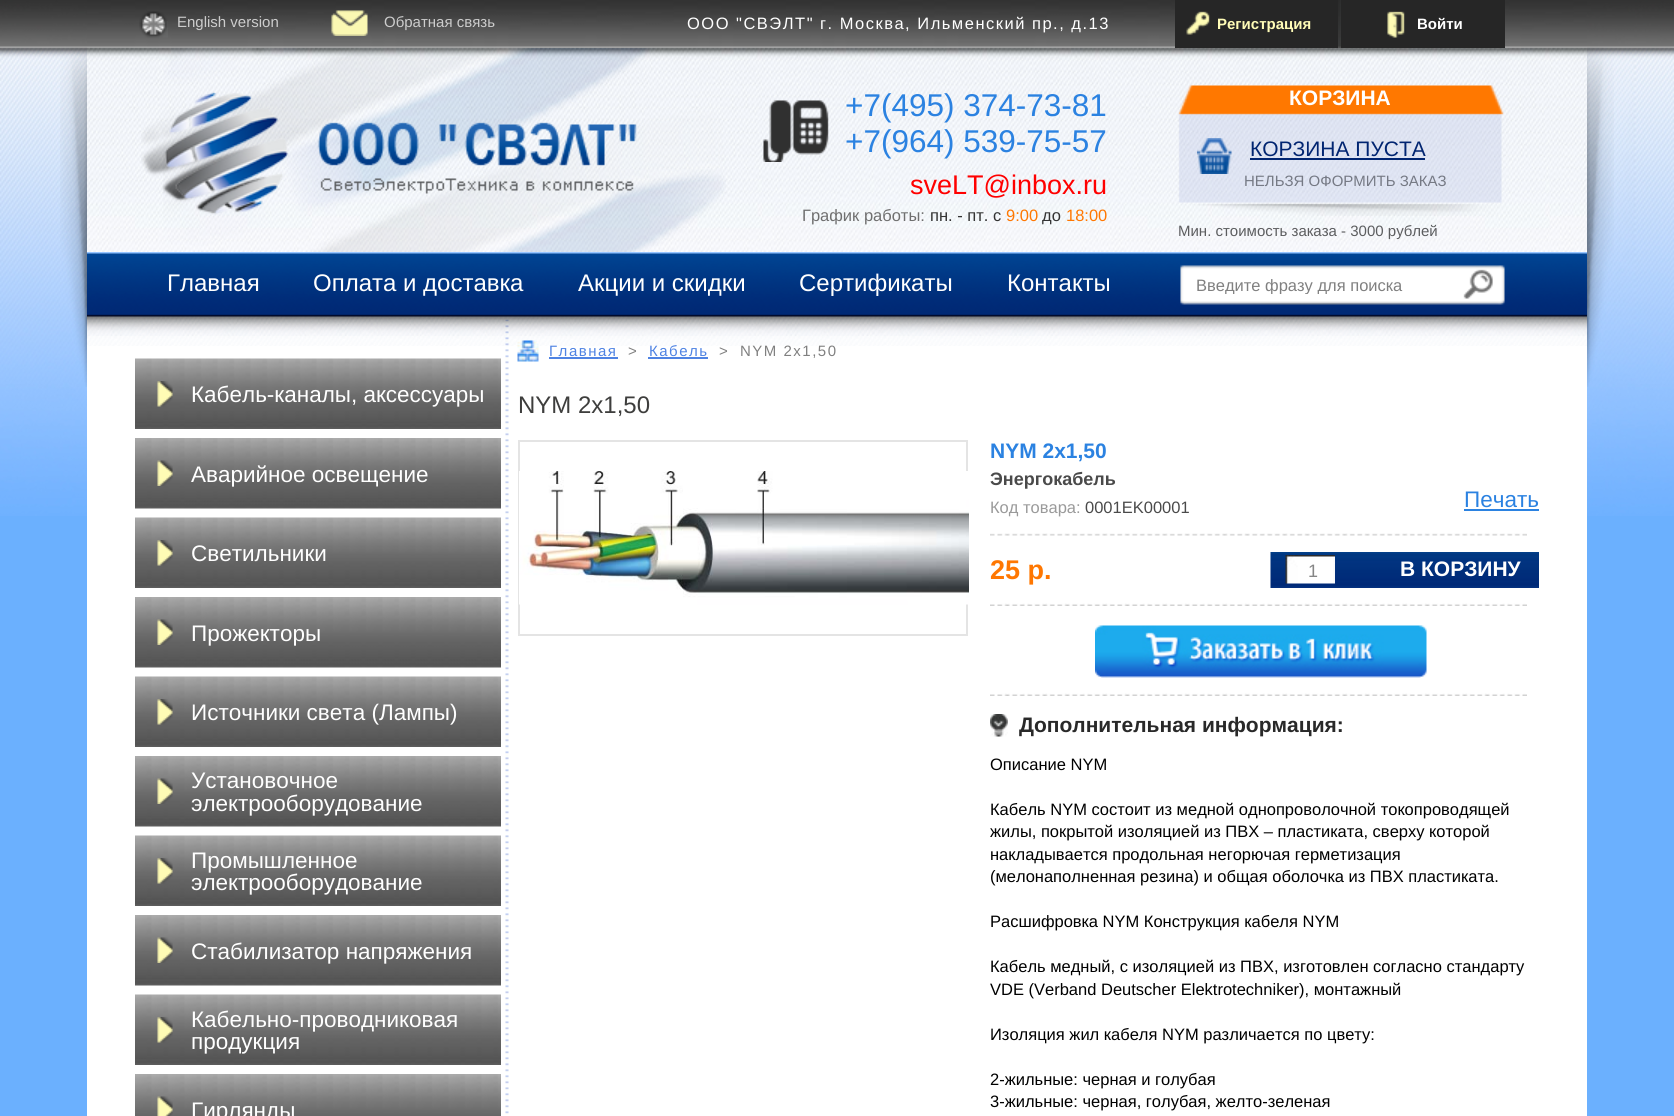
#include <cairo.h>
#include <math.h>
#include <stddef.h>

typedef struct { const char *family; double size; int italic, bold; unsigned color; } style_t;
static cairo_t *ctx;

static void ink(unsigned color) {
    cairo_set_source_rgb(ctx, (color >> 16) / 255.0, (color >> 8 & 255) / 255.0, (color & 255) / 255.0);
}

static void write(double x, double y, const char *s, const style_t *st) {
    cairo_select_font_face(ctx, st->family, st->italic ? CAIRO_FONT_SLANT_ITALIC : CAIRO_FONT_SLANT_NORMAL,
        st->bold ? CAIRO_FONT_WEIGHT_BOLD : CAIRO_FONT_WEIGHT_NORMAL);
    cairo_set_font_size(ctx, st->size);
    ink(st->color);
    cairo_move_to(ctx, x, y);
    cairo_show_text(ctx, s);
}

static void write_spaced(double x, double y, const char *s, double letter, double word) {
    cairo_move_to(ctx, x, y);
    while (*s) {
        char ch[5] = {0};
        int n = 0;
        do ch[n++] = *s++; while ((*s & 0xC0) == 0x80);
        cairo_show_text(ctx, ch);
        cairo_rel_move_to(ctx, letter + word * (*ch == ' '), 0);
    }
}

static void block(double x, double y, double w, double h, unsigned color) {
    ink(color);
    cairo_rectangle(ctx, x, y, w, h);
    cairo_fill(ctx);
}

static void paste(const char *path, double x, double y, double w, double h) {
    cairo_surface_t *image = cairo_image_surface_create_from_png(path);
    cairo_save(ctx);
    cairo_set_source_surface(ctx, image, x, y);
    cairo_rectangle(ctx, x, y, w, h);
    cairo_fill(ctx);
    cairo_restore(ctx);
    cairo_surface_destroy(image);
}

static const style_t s1 = {"Liberation Sans", 15, 0, 0, 0xcdcdcd};
static const style_t s2 = {"Liberation Sans", 15, 0, 1, 0xfffcb7};
static const style_t s3 = {"Liberation Sans", 15, 0, 1, 0xffffff};
static const style_t s4 = {"Liberation Sans", 31.5, 0, 0, 0x2b82e1};
static const style_t s5 = {"Liberation Sans", 27, 0, 0, 0xff0000};
static const style_t s6 = {"Liberation Sans", 16.5, 0, 0, 0x6f6f6f};
static const style_t s7 = {"Liberation Sans", 16.5, 0, 0, 0x333333};
static const style_t s8 = {"Liberation Sans", 16.5, 0, 0, 0xff7701};
static const style_t s9 = {"Liberation Sans", 21, 0, 1, 0xffffff};
static const style_t s10 = {"Liberation Sans", 21, 0, 0, 0x012571};
static const style_t s11 = {"Liberation Sans", 15, 0, 0, 0x757984};
static const style_t s12 = {"Liberation Sans", 15, 0, 0, 0x5c5d5f};
static const style_t s13 = {"Liberation Sans", 24, 0, 0, 0xffffff};
static const style_t s14 = {"Liberation Sans", 16.5, 0, 0, 0x808080};
static const style_t s15 = {"Liberation Sans", 22.5, 0, 0, 0xffffff};
static const style_t s16 = {"Liberation Sans", 24, 0, 0, 0x3e3e3d};
static const style_t s17 = {"Liberation Sans", 21, 0, 1, 0x2b82e1};
static const style_t s18 = {"Liberation Sans", 18, 0, 1, 0x4a4a4a};
static const style_t s19 = {"Liberation Sans", 16.5, 0, 0, 0x9a9a9a};
static const style_t s20 = {"Liberation Sans", 16.5, 0, 0, 0x4a4a4a};
static const style_t s21 = {"Liberation Sans", 22.5, 0, 0, 0x2b82e1};
static const style_t s22 = {"Liberation Sans", 27, 0, 1, 0xff7701};
static const style_t s23 = {"Liberation Sans", 18, 0, 0, 0x868686};
static const style_t s24 = {"Liberation Sans", 21, 0, 1, 0x292929};
static const style_t s25 = {"Liberation Sans", 16.5, 0, 0, 0x000000};

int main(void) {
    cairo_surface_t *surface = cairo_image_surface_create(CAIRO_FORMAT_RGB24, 1674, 1116);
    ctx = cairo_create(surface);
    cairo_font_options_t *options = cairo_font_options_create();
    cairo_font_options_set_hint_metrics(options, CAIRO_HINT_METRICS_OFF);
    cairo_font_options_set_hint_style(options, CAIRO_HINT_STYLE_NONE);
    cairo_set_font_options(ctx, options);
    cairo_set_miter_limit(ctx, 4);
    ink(0x6bb0fe);
    cairo_paint(ctx);
    paste("pic1.png", 0, 0, 1674, 516);
    block(87, 336, 1500, 780, 0xffffff);
    paste("pic2.png", 87, 0, 1500, 336);
    paste("pic3.png", 139, 11, 29, 27);
    write(177, 27, "English version", &s1);
    paste("pic4.png", 331, 10, 37, 26);
    write(384, 27, "Обратная связь", &s1);
    cairo_set_font_size(ctx, 16.5);
    ink(0xffffff);
    write_spaced(687, 29, "ООО \"СВЭЛТ\" г. Москва, Ильменский пр., д.13", 1.5, 0);
    block(1175, 0, 330, 48, 0x262626);
    paste("pic5.png", 1338, 0, 3, 48);
    paste("pic6.png", 1186, 11, 24, 24);
    write(1217, 29, "Регистрация", &s2);
    paste("pic7.png", 1387, 11, 18, 27);
    write(1417, 29, "Войти", &s3);
    paste("pic8.png", 60, 47, 27, 340);
    paste("pic9.png", 163, 48, 563, 204);
    paste("pic10.png", 141, 92, 496, 123);
    paste("pic11.png", 763, 100, 66, 62);
    write(845, 116, "+7(495) 374-73-81", &s4);
    write(845, 152, "+7(964) 539-75-57", &s4);
    write(910, 194, "sveLT@inbox.ru", &s5);
    write(802, 221, "График работы:", &s6);
    write(930, 221, "пн. - пт. с", &s7);
    write(1006, 221, "9:00", &s8);
    write(1042, 221, "до", &s7);
    write(1066, 221, "18:00", &s8);
    paste("pic12.png", 1178, 85, 326, 131);
    write(1289, 105, "КОРЗИНА", &s9);
    paste("pic13.png", 1197, 138, 35, 36);
    write(1250, 156, "КОРЗИНА ПУСТА", &s10);
    block(1250, 158, 175, 2, 0x012571);
    write(1244, 186, "НЕЛЬЗЯ ОФОРМИТЬ ЗАКАЗ", &s11);
    write(1178, 236, "Мин. стоимость заказа - 3000 рублей", &s12);
    paste("pic14.png", 1587, 47, 27, 340);
    paste("pic18.png", 505, 319, 4, 796);
    paste("pic15.png", 87, 252, 1500, 94);
    write(167, 291, "Главная", &s13);
    write(313, 291, "Оплата и доставка", &s13);
    write(578, 291, "Акции и скидки", &s13);
    write(799, 291, "Сертификаты", &s13);
    write(1007, 291, "Контакты", &s13);
    paste("pic16.png", 1180, 265, 325, 40);
    cairo_save(ctx);
    cairo_rectangle(ctx, 1196, 276, 294, 18);
    cairo_clip(ctx);
    write(1196, 291, "Введите фразу для поиска", &s14);
    cairo_restore(ctx);
    paste("pic17.png", 1463, 269, 30, 30);
    paste("pic19.png", 135, 358, 366, 71);
    paste("pic20.png", 157, 381, 16, 26);
    write(191, 402, "Кабель-каналы, аксессуары", &s15);
    paste("pic21.png", 135, 438, 366, 71);
    paste("pic22.png", 157, 460, 16, 26);
    write(191, 482, "Аварийное освещение", &s15);
    paste("pic23.png", 135, 517, 366, 71);
    paste("pic20.png", 157, 540, 16, 26);
    write(191, 561, "Светильники", &s15);
    paste("pic24.png", 135, 597, 366, 71);
    paste("pic25.png", 157, 619, 16, 26);
    write(191, 641, "Прожекторы", &s15);
    paste("pic26.png", 135, 676, 366, 71);
    paste("pic27.png", 157, 699, 16, 26);
    write(191, 720, "Источники света (Лампы)", &s15);
    paste("pic28.png", 135, 756, 366, 71);
    paste("pic29.png", 157, 778, 16, 26);
    write(191, 788, "Установочное", &s15);
    write(191, 811, "электрооборудование", &s15);
    paste("pic30.png", 135, 835, 366, 71);
    paste("pic27.png", 157, 858, 16, 26);
    write(191, 868, "Промышленное", &s15);
    write(191, 890, "электрооборудование", &s15);
    paste("pic31.png", 135, 915, 366, 71);
    paste("pic32.png", 157, 937, 16, 26);
    write(191, 959, "Стабилизатор напряжения", &s15);
    paste("pic33.png", 135, 994, 366, 71);
    paste("pic20.png", 157, 1017, 16, 26);
    write(191, 1027, "Кабельно-проводниковая", &s15);
    write(191, 1049, "продукция", &s15);
    paste("pic34.png", 135, 1074, 366, 42);
    paste("pic35.png", 157, 1096, 16, 20);
    write(191, 1118, "Гирлянды", &s15);
    paste("pic36.png", 517, 340, 22, 22);
    cairo_set_font_size(ctx, 15);
    ink(0x4f83e3);
    write_spaced(549, 356, "Главная", 1.5, 0);
    block(549, 357, 69, 2, 0x4f83e3);
    ink(0x808080);
    write_spaced(628, 356, ">", 1.5, 0);
    ink(0x4f83e3);
    write_spaced(649, 356, "Кабель", 1.5, 0);
    block(648, 357, 60, 2, 0x4f83e3);
    ink(0x808080);
    write_spaced(719, 356, ">", 1.5, 0);
    write_spaced(740, 356, "NYM 2х1,50", 1.5, 0);
    write(518, 413, "NYM 2х1,50", &s16);
    cairo_rectangle(ctx, 519, 441, 448, 194);
    ink(0xe4e4e4);
    cairo_stroke(ctx);
    paste("pic37.png", 519, 471, 450, 134);
    write(990, 458, "NYM 2х1,50", &s17);
    write(990, 485, "Энергокабель", &s18);
    write(990, 513, "Код товара:", &s19);
    write(1085, 513, "0001EK00001", &s20);
    write(1464, 507, "Печать", &s21);
    block(1464, 509, 75, 2, 0x2b82e1);
    paste("pic38.png", 990, 533, 537, 3);
    write(990, 579, "25 p.", &s22);
    paste("pic39.png", 1270, 552, 269, 36);
    paste("pic40.png", 1285, 555, 50, 29);
    write(1308, 577, "1", &s23);
    write(1400, 576, "В КОРЗИНУ", &s9);
    paste("pic41.png", 990, 603, 537, 3);
    paste("pic42.png", 1095, 625, 332, 53);
    paste("pic41.png", 990, 693, 537, 3);
    paste("pic43.png", 990, 714, 18, 23);
    write(1019, 732, "Дополнительная информация:", &s24);
    write(990, 770, "Описание NYM", &s25);
    write(990, 815, "Кабель NYM состоит из медной однопроволочной токопроводящей", &s25);
    write(990, 837, "жилы, покрытой изоляцией из ПВХ – пластиката, сверху которой", &s25);
    write(990, 860, "накладывается продольная негорючая герметизация", &s25);
    write(990, 882, "(мелонаполненная резина) и общая оболочка из ПВХ пластиката.", &s25);
    write(990, 927, "Расшифровка NYM Конструкция кабеля NYM", &s25);
    write(990, 972, "Кабель медный, с изоляцией из ПВХ, изготовлен согласно стандарту", &s25);
    write(990, 995, "VDE (Verband Deutscher Elektrotechniker), монтажный", &s25);
    write(990, 1040, "Изоляция жил кабеля NYM различается по цвету:", &s25);
    write(990, 1085, "2-жильные: черная и голубая", &s25);
    write(990, 1107, "3-жильные: черная, голубая, желто-зеленая", &s25);
    cairo_surface_write_to_png(surface, "screenshot.png");
    cairo_font_options_destroy(options);
    cairo_destroy(ctx);
    cairo_surface_destroy(surface);
    return 0;
}
